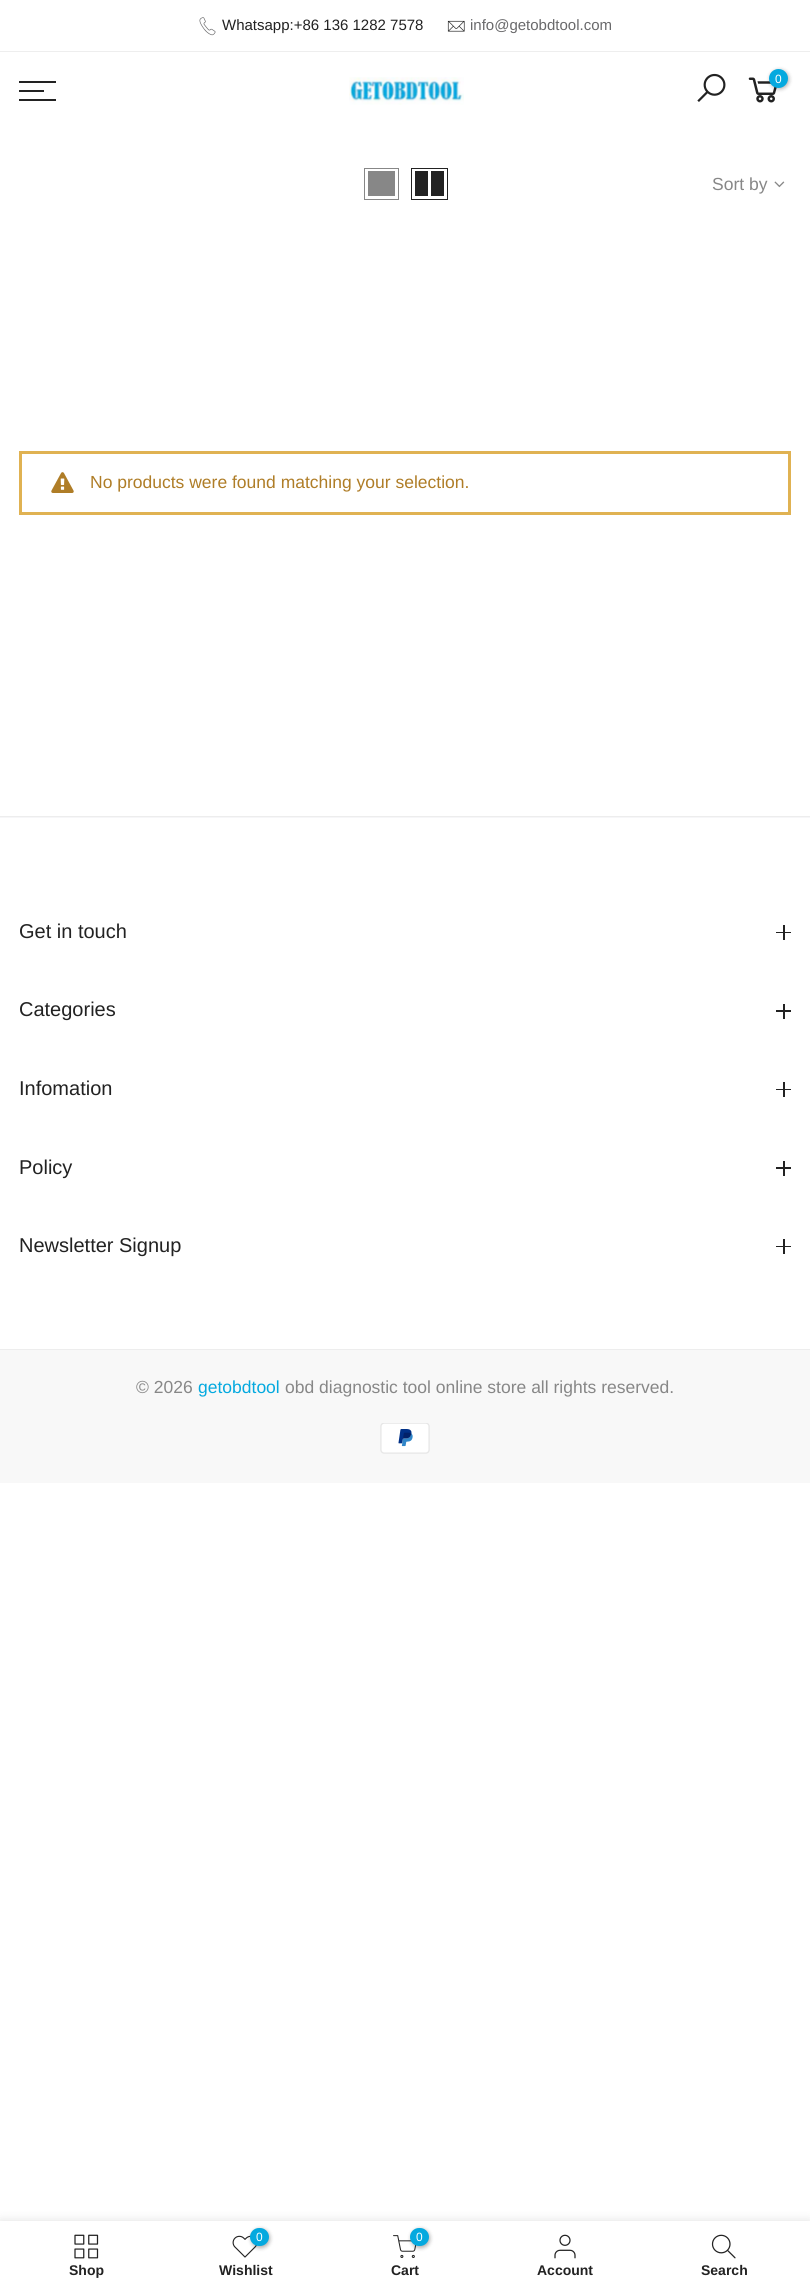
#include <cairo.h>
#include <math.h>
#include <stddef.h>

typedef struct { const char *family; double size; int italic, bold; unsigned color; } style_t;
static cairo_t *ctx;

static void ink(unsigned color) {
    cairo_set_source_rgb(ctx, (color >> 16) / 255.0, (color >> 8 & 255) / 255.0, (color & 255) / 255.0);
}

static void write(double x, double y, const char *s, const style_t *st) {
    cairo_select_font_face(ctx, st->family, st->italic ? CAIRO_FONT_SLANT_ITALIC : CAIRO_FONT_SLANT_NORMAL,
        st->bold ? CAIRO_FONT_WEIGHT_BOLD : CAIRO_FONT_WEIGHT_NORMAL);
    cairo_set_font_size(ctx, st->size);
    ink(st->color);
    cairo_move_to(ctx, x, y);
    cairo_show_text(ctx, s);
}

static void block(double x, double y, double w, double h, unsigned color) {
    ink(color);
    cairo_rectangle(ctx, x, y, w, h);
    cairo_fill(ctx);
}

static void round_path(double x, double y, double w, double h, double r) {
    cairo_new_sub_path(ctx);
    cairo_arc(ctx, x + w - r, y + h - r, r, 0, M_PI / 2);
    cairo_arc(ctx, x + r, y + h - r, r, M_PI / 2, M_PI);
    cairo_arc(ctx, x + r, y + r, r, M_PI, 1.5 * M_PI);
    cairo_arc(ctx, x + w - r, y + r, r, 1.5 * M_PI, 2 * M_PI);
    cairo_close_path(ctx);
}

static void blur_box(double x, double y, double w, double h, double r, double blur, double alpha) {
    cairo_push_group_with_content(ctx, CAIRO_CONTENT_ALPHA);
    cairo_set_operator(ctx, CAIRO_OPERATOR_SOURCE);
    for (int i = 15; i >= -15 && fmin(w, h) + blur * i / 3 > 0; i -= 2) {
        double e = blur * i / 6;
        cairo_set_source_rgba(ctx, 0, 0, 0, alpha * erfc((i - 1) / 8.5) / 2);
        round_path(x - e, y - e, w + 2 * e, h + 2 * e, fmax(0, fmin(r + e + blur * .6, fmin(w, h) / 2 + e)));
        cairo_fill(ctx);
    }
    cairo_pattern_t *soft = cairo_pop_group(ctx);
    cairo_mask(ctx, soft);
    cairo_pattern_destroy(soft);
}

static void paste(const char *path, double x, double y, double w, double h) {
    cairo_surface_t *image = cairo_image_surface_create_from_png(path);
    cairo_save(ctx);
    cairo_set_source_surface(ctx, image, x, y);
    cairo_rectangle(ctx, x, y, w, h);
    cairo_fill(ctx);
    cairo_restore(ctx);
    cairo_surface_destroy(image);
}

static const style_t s1 = {"Liberation Sans", 15, 0, 0, 0x222222};
static const style_t s2 = {"Liberation Sans", 15, 0, 0, 0x69696b};
static const style_t s3 = {"Liberation Sans", 12, 0, 0, 0xffffff};
static const style_t s4 = {"Liberation Sans", 17.5, 0, 0, 0x878787};
static const style_t s5 = {"Liberation Sans", 17.5, 0, 0, 0xaf7d27};
static const style_t s6 = {"Liberation Sans", 20, 0, 0, 0x222222};
static const style_t s7 = {"Liberation Sans", 17.5, 0, 0, 0x04a9df};
static const style_t s8 = {"Liberation Sans", 14, 0, 1, 0x222222};

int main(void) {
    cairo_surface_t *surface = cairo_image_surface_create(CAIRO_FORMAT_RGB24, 810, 2289);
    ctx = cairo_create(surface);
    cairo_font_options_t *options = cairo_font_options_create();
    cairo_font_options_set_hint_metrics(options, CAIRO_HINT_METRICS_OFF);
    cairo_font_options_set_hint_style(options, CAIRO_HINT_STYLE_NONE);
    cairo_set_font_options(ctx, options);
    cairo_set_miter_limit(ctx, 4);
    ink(0xffffff);
    cairo_paint(ctx);
    block(0, 51, 810, 1, 0xeeeeee);
    paste("pic1.png", 199, 17, 17, 19);
    write(222, 30, "Whatsapp:+86 136 1282 7578", &s1);
    paste("pic2.png", 447, 20, 18, 12);
    write(470, 30, "info@getobdtool.com", &s2);
    block(19, 81, 37, 2, 0x222222);
    block(19, 90, 25, 2, 0x222222);
    block(19, 99, 37, 2, 0x222222);
    paste("pic3.png", 349, 77, 115, 28);
    paste("pic4.png", 697, 73, 29, 29);
    paste("pic5.png", 748, 77, 29, 26);
    ink(0x000000);
    blur_box(770, 70, 19, 19, 9.5, 2, 0.3);
    ink(0x04a9df);
    cairo_arc(ctx, 778.5, 78.5, 9.5, 0, 2 * M_PI);
    cairo_fill(ctx);
    write(775, 83, "0", &s3);
    cairo_rectangle(ctx, 364.5, 168.5, 34, 31);
    ink(0x878787);
    cairo_set_line_width(ctx, 1);
    cairo_stroke(ctx);
    block(368, 171, 27, 25, 0x878787);
    cairo_rectangle(ctx, 411.5, 168.5, 36, 31);
    ink(0x222222);
    cairo_stroke(ctx);
    block(431, 171, 13, 25, 0x222222);
    block(415, 171, 13, 25, 0x222222);
    write(712, 190, "Sort by", &s4);
    paste("pic6.png", 774, 181, 11, 7);
    cairo_rectangle(ctx, 20.5, 452.5, 769, 61);
    ink(0xe0b252);
    cairo_set_line_width(ctx, 3);
    cairo_stroke(ctx);
    paste("pic7.png", 51, 472, 23, 21);
    write(90, 488, "No products were found matching your selection.", &s5);
    block(0, 817, 810, 1, 0xf6f6f8);
    block(0, 816, 810, 1, 0xededed);
    block(0, 1349, 810, 1, 0xededed);
    write(19, 938, "Get in touch", &s6);
    block(783, 925, 2, 15, 0x222222);
    block(776, 932, 15, 1, 0x222222);
    write(19, 1016, "Categories", &s6);
    block(783, 1004, 2, 15, 0x222222);
    block(776, 1010, 15, 2, 0x222222);
    write(19, 1095, "Infomation", &s6);
    block(783, 1082, 2, 15, 0x222222);
    block(776, 1089, 15, 1, 0x222222);
    write(19, 1174, "Policy", &s6);
    block(783, 1161, 2, 15, 0x222222);
    block(776, 1167, 15, 2, 0x222222);
    write(19, 1252, "Newsletter Signup", &s6);
    block(783, 1239, 2, 15, 0x222222);
    block(776, 1246, 15, 1, 0x222222);
    block(0, 1350, 810, 133, 0xf8f8f8);
    write(136, 1393, "© 2026", &s4);
    write(198, 1393, "getobdtool", &s7);
    write(285, 1393, "obd diagnostic tool online store all rights reserved.", &s4);
    paste("pic8.png", 380, 1423, 50, 31);
    ink(0x000000);
    blur_box(0, 2221, 810, 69, 0, 5.5, 0.12);
    block(0, 2221, 810, 68, 0xffffff);
    paste("pic9.png", 74, 2234, 25, 25);
    write(69, 2275, "Shop", &s8);
    paste("pic10.png", 232, 2235, 25, 23);
    ink(0x000000);
    blur_box(251, 2229, 19, 19, 9.5, 2, 0.3);
    ink(0x04a9df);
    round_path(250, 2228, 19, 18, 9);
    cairo_fill(ctx);
    write(256, 2241, "0", &s3);
    write(219, 2275, "Wishlist", &s8);
    paste("pic11.png", 393, 2235, 24, 23);
    ink(0x000000);
    blur_box(411, 2229, 19, 19, 9.5, 2, 0.3);
    ink(0x04a9df);
    round_path(410, 2228, 19, 18, 9);
    cairo_fill(ctx);
    write(416, 2241, "0", &s3);
    write(391, 2275, "Cart", &s8);
    paste("pic12.png", 554, 2234, 22, 25);
    write(537, 2275, "Account", &s8);
    paste("pic13.png", 711, 2234, 25, 25);
    write(701, 2275, "Search", &s8);
    cairo_surface_write_to_png(surface, "screenshot.png");
    cairo_font_options_destroy(options);
    cairo_destroy(ctx);
    cairo_surface_destroy(surface);
    return 0;
}
